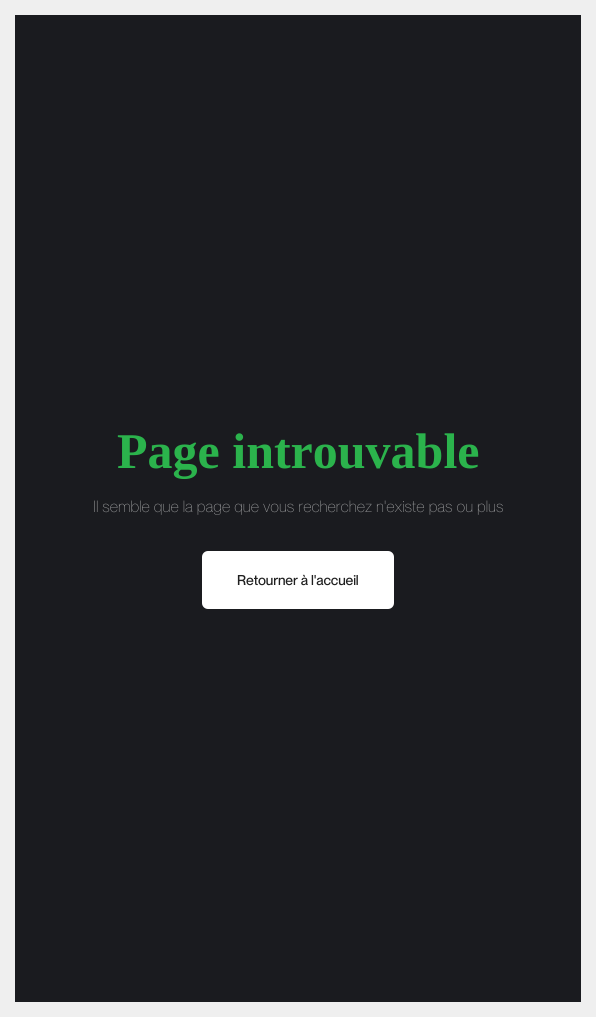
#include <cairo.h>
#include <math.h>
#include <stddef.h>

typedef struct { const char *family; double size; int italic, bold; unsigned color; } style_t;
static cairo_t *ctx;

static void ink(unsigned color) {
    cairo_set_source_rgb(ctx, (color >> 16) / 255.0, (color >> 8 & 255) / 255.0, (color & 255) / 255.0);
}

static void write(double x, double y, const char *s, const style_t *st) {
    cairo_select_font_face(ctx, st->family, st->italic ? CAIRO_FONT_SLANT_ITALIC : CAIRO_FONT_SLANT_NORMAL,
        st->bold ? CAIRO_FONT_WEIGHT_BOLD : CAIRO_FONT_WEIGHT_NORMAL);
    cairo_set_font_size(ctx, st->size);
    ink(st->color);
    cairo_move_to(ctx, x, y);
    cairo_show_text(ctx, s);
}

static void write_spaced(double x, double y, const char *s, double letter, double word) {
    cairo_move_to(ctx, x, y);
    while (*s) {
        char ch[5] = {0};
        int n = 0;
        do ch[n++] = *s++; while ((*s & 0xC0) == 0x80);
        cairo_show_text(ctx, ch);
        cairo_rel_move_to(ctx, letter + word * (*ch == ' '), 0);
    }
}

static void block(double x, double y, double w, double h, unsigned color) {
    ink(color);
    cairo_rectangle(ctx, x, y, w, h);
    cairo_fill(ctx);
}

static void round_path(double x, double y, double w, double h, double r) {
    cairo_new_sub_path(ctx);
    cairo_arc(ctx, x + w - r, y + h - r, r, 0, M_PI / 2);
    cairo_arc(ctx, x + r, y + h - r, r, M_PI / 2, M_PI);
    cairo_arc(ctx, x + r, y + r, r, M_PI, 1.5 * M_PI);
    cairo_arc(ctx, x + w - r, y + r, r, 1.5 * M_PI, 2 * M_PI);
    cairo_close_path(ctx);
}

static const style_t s1 = {"Liberation Serif", 50, 0, 1, 0x2bb34c};
static const style_t s2 = {"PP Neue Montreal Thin", 16, 0, 0, 0xa3a4a5};

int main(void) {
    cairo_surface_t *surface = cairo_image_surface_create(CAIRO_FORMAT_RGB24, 596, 1017);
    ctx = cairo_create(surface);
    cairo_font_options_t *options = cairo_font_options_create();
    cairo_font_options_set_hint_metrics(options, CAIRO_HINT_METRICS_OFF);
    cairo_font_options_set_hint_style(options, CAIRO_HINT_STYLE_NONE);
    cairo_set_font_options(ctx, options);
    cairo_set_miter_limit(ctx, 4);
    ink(0xefefef);
    cairo_paint(ctx);
    block(15, 15, 566, 987, 0x1a1b1f);
    write(117, 468, "Page introuvable", &s1);
    write(93, 512, "Il semble que la page que vous recherchez n'existe pas ou plus", &s2);
    ink(0xffffff);
    round_path(202, 551, 192, 58, 6);
    cairo_fill(ctx);
    cairo_select_font_face(ctx, "PP Neue Montreal Medium", CAIRO_FONT_SLANT_NORMAL, CAIRO_FONT_WEIGHT_NORMAL);
    cairo_set_font_size(ctx, 14);
    ink(0x202020);
    write_spaced(237, 585, "Retourner à l'accueil", -0.15, 0);
    cairo_surface_write_to_png(surface, "screenshot.png");
    cairo_font_options_destroy(options);
    cairo_destroy(ctx);
    cairo_surface_destroy(surface);
    return 0;
}
